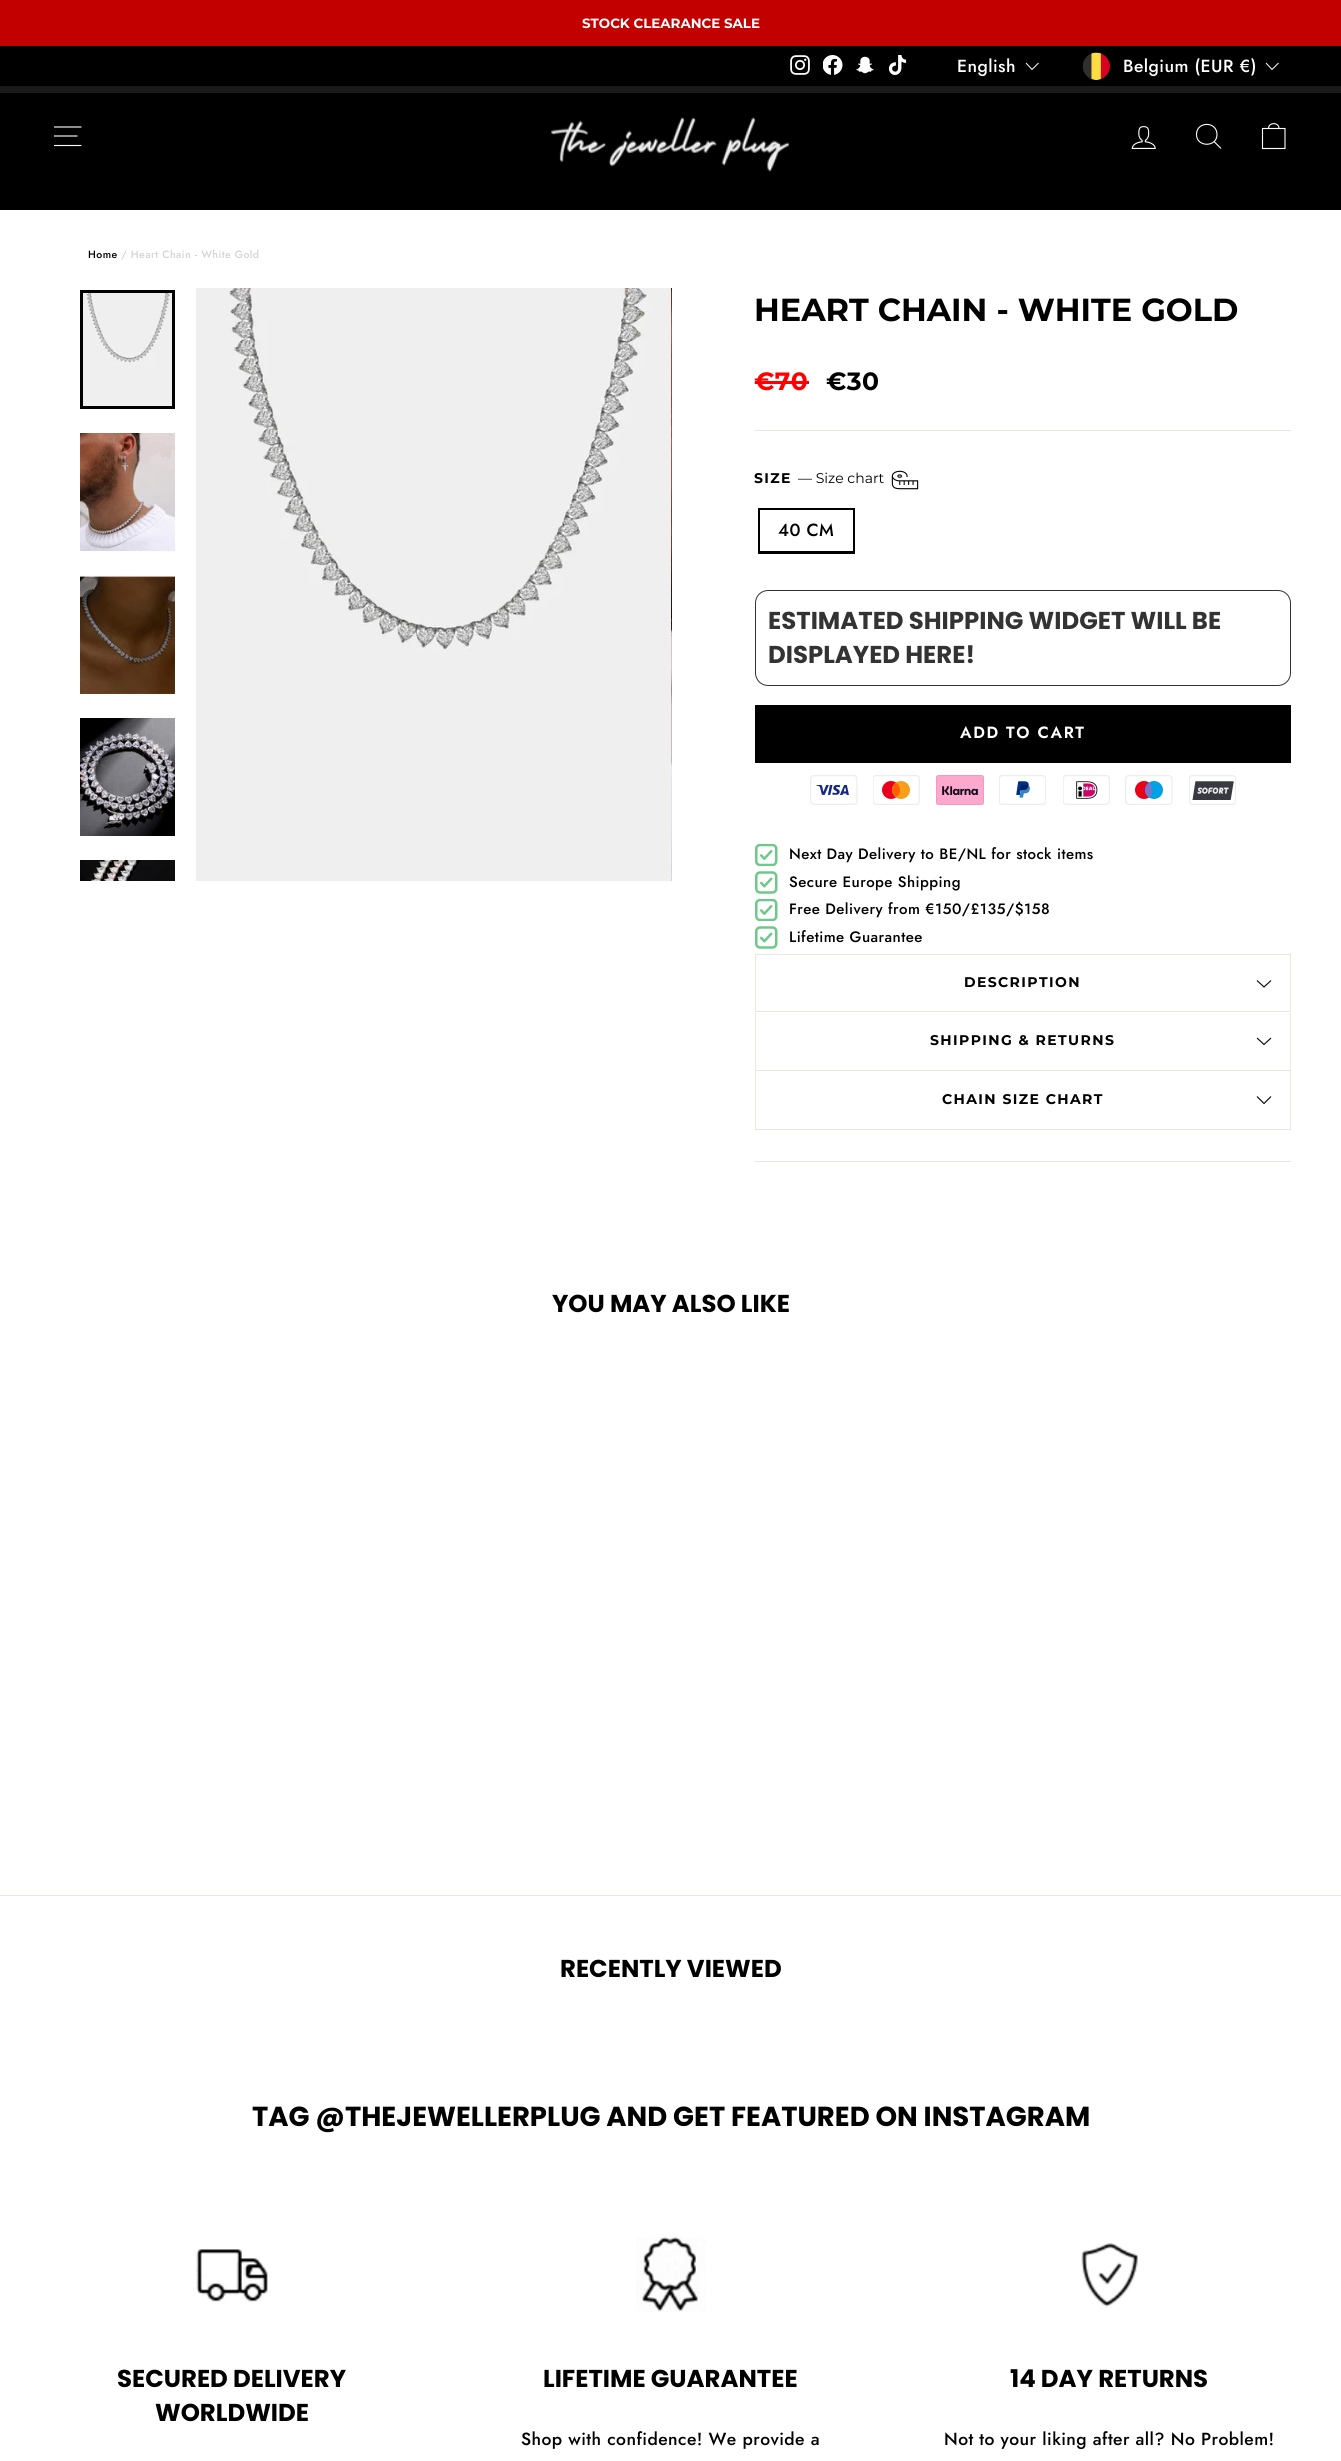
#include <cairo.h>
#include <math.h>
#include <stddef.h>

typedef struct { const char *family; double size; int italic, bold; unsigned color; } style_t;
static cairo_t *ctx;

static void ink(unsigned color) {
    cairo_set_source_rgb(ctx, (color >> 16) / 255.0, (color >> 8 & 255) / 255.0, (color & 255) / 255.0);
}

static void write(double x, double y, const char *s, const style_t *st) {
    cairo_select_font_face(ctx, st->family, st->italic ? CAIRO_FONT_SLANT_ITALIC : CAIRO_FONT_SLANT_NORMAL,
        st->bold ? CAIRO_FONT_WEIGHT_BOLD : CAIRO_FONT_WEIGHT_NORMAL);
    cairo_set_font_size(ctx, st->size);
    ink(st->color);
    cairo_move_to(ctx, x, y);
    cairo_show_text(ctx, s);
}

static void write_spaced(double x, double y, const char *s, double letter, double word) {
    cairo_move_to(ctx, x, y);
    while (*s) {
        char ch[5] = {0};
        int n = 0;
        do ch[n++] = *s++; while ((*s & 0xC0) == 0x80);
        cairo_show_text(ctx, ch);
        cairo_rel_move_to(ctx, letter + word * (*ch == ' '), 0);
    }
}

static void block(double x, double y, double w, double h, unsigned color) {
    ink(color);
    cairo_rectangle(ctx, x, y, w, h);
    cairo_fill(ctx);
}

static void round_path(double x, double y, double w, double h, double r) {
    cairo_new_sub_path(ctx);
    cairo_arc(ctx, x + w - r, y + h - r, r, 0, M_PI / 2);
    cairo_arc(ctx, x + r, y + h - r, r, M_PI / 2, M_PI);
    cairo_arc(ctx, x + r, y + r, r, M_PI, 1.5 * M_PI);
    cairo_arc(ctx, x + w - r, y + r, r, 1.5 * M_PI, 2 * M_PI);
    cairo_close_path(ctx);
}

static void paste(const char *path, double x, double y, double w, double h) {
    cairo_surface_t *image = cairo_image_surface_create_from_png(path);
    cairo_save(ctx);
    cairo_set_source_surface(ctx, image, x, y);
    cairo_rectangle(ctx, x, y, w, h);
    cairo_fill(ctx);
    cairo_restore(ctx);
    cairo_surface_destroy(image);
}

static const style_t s1 = {"Montserrat", 13.4, 0, 1, 0xffffff};
static const style_t s2 = {"Montserrat", 31.9, 0, 1, 0x000000};
static const style_t s3 = {"Montserrat", 14, 0, 0, 0x000000};
static const style_t s4 = {"Poppins", 24.4, 0, 1, 0x333333};
static const style_t s5 = {"Poppins", 24.4, 0, 1, 0x000000};
static const style_t s6 = {"Poppins", 27.5, 0, 1, 0x000000};

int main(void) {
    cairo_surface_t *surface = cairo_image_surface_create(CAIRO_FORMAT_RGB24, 1341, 2461);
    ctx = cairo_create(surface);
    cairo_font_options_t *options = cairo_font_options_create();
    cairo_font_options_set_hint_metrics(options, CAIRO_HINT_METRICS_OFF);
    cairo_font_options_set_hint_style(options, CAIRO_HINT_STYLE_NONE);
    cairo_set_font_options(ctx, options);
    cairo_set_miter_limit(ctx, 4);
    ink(0xffffff);
    cairo_paint(ctx);
    block(0, 0, 1341, 46, 0xc20000);
    write(582, 28, "STOCK CLEARANCE SALE", &s1);
    block(0, 46, 1341, 40, 0x000000);
    paste("pic1.png", 790, 55, 20, 20);
    paste("pic2.png", 823, 55, 20, 20);
    paste("pic3.png", 856, 56, 18, 18);
    paste("pic4.png", 888, 55, 19, 20);
    cairo_select_font_face(ctx, "Jost Medium", CAIRO_FONT_SLANT_NORMAL, CAIRO_FONT_WEIGHT_NORMAL);
    cairo_set_font_size(ctx, 17.5);
    ink(0xffffff);
    write_spaced(957, 72, "English", 0.45, 0);
    cairo_new_path(ctx);
    cairo_move_to(ctx, 1026, 63);
    cairo_line_to(ctx, 1032, 69.5);
    cairo_line_to(ctx, 1038.5, 63);
    cairo_set_line_width(ctx, 1);
    cairo_stroke(ctx);
    paste("pic5.png", 1082, 52, 28, 28);
    write_spaced(1123, 72, "Belgium (EUR €)", 0.45, 0);
    cairo_new_path(ctx);
    cairo_move_to(ctx, 1266, 63);
    cairo_line_to(ctx, 1272, 69.5);
    cairo_line_to(ctx, 1278.5, 63);
    cairo_stroke(ctx);
    block(0, 93, 1341, 117, 0x000000);
    block(0, 86, 1341, 7, 0x1a1a1a);
    cairo_new_path(ctx);
    cairo_move_to(ctx, 54, 127);
    cairo_line_to(ctx, 81.5, 127);
    cairo_move_to(ctx, 54, 136);
    cairo_line_to(ctx, 77.5, 136);
    cairo_move_to(ctx, 54, 145.5);
    cairo_line_to(ctx, 81.5, 145.5);
    ink(0xffffff);
    cairo_set_line_width(ctx, 1.1);
    cairo_stroke(ctx);
    paste("pic6.png", 551, 117, 239, 55);
    paste("pic7.png", 1131, 126, 25, 23);
    cairo_new_path(ctx);
    cairo_move_to(ctx, 1217, 134.5);
    cairo_curve_to(ctx, 1217, 147.5, 1196.5, 147.5, 1196.5, 134.5);
    cairo_curve_to(ctx, 1196.5, 121, 1217, 121, 1217, 134.5);
    cairo_close_path(ctx);
    cairo_move_to(ctx, 1221, 148.5);
    cairo_line_to(ctx, 1214, 141.5);
    cairo_stroke(ctx);
    cairo_new_path(ctx);
    cairo_move_to(ctx, 1262.5, 128.5);
    cairo_line_to(ctx, 1285, 128.5);
    cairo_line_to(ctx, 1285, 148.5);
    cairo_line_to(ctx, 1262.5, 148.5);
    cairo_close_path(ctx);
    cairo_move_to(ctx, 1268.5, 128.5);
    cairo_curve_to(ctx, 1268.5, 122, 1279, 122, 1279, 128.5);
    cairo_stroke(ctx);
    cairo_set_font_size(ctx, 10.5);
    ink(0x000000);
    write_spaced(88, 258, "Home", 0.45, 0);
    ink(0xd3d3d3);
    write_spaced(121, 258, "/ Heart Chain - White Gold", 0.45, 0);
    paste("pic8.png", 83, 293, 89, 113);
    cairo_rectangle(ctx, 81.5, 291.5, 92, 116);
    ink(0x000000);
    cairo_set_line_width(ctx, 3);
    cairo_stroke(ctx);
    paste("pic9.png", 80, 433, 95, 118);
    paste("pic10.png", 80, 575, 95, 119);
    paste("pic11.png", 80, 718, 95, 118);
    paste("pic12.png", 80, 860, 95, 21);
    paste("pic13.png", 196, 288, 475, 593);
    paste("pic14.png", 671, 288, 1, 593);
    write(754, 321, "HEART CHAIN - WHITE GOLD", &s2);
    cairo_set_font_size(ctx, 25);
    ink(0xff0000);
    write_spaced(754, 390, "€70", 0.45, 0);
    block(755, 381, 54, 3, 0xff0000);
    ink(0x000000);
    write_spaced(826, 390, "€30", 0.45, 0);
    block(755, 430, 536, 1, 0xe8e8e1);
    cairo_set_font_size(ctx, 14);
    ink(0x000000);
    write_spaced(754, 483, "SIZE", 1.4, 0);
    write(798, 483, "— Size chart", &s3);
    paste("pic15.png", 891, 470, 28, 20);
    cairo_rectangle(ctx, 759.5, 509.5, 94, 43);
    cairo_stroke(ctx);
    block(760, 510, 93, 41, 0xffffff);
    cairo_select_font_face(ctx, "Jost Medium", CAIRO_FONT_SLANT_NORMAL, CAIRO_FONT_WEIGHT_NORMAL);
    cairo_set_font_size(ctx, 17.5);
    ink(0x000000);
    write_spaced(778, 536, "40 CM", 0.45, 0);
    round_path(755.5, 590.5, 535, 95, 12.5);
    ink(0x333333);
    cairo_set_line_width(ctx, 1);
    cairo_stroke(ctx);
    write(768, 629, "ESTIMATED SHIPPING WIDGET WILL BE", &s4);
    write(768, 663, "DISPLAYED HERE!", &s4);
    block(755, 705, 536, 58, 0x000000);
    cairo_select_font_face(ctx, "Jost SemiBold", CAIRO_FONT_SLANT_NORMAL, CAIRO_FONT_WEIGHT_NORMAL);
    cairo_set_font_size(ctx, 16.25);
    ink(0xffffff);
    write_spaced(960, 738, "ADD TO CART", 1.6, 0);
    paste("pic16.png", 810, 775, 48, 30);
    paste("pic17.png", 873, 775, 47, 30);
    paste("pic18.png", 936, 775, 48, 30);
    paste("pic19.png", 999, 775, 47, 30);
    paste("pic20.png", 1063, 775, 47, 30);
    paste("pic21.png", 1125, 775, 48, 30);
    paste("pic22.png", 1189, 775, 47, 30);
    paste("pic23.png", 755, 844, 23, 22);
    cairo_select_font_face(ctx, "Jost Medium", CAIRO_FONT_SLANT_NORMAL, CAIRO_FONT_WEIGHT_NORMAL);
    cairo_set_font_size(ctx, 15);
    ink(0x000000);
    write_spaced(789, 859, "Next Day Delivery to BE/NL for stock items", 0.45, 0);
    paste("pic24.png", 755, 871, 23, 23);
    write_spaced(789, 887, "Secure Europe Shipping", 0.45, 0);
    paste("pic23.png", 755, 899, 23, 22);
    write_spaced(789, 914, "Free Delivery from €150/£135/$158", 0.45, 0);
    paste("pic24.png", 755, 926, 23, 23);
    write_spaced(789, 942, "Lifetime Guarantee", 0.45, 0);
    block(755, 1011, 536, 1, 0xe8e8e1);
    block(755, 954, 536, 1, 0xe8e8e1);
    block(1290, 954, 1, 57, 0xe8e8e1);
    block(755, 954, 1, 57, 0xe8e8e1);
    cairo_select_font_face(ctx, "Montserrat", CAIRO_FONT_SLANT_NORMAL, CAIRO_FONT_WEIGHT_BOLD);
    cairo_set_font_size(ctx, 14);
    ink(0x000000);
    write_spaced(964, 987, "DESCRIPTION", 1.4, 0);
    cairo_new_path(ctx);
    cairo_move_to(ctx, 1257, 980.5);
    cairo_line_to(ctx, 1264, 987);
    cairo_line_to(ctx, 1271, 980.5);
    cairo_set_line_width(ctx, 1.1);
    cairo_stroke(ctx);
    block(755, 1070, 536, 1, 0xe8e8e1);
    block(1290, 1013, 1, 57, 0xe8e8e1);
    block(755, 1013, 1, 57, 0xe8e8e1);
    ink(0x000000);
    write_spaced(930, 1045, "SHIPPING & RETURNS", 1.4, 0);
    cairo_new_path(ctx);
    cairo_move_to(ctx, 1257, 1038);
    cairo_line_to(ctx, 1264, 1044.5);
    cairo_line_to(ctx, 1271, 1038);
    cairo_stroke(ctx);
    block(755, 1129, 536, 1, 0xe8e8e1);
    block(1290, 1071, 1, 58, 0xe8e8e1);
    block(755, 1071, 1, 58, 0xe8e8e1);
    ink(0x000000);
    write_spaced(942, 1104, "CHAIN SIZE CHART", 1.4, 0);
    cairo_new_path(ctx);
    cairo_move_to(ctx, 1257, 1096.5);
    cairo_line_to(ctx, 1264, 1103.5);
    cairo_line_to(ctx, 1271, 1096.5);
    cairo_stroke(ctx);
    block(755, 1161, 536, 1, 0xe8e8e1);
    write(552, 1312, "YOU MAY ALSO LIKE", &s5);
    block(0, 1895, 1341, 1, 0xe8e8e1);
    write(560, 1977, "RECENTLY VIEWED", &s5);
    write(252, 2126, "TAG @THEJEWELLERPLUG AND GET FEATURED ON INSTAGRAM", &s6);
    paste("pic25.png", 196, 2249, 72, 53);
    write(117, 2387, "SECURED DELIVERY", &s5);
    write(155, 2421, "WORLDWIDE", &s5);
    paste("pic26.png", 636, 2237, 70, 75);
    write(543, 2387, "LIFETIME GUARANTEE", &s5);
    cairo_select_font_face(ctx, "Jost Medium", CAIRO_FONT_SLANT_NORMAL, CAIRO_FONT_WEIGHT_NORMAL);
    cairo_set_font_size(ctx, 17.5);
    write_spaced(521, 2445, "Shop with confidence! We provide a", 0.45, 0);
    paste("pic27.png", 1081, 2243, 57, 65);
    write(1010, 2387, "14 DAY RETURNS", &s5);
    cairo_select_font_face(ctx, "Jost Medium", CAIRO_FONT_SLANT_NORMAL, CAIRO_FONT_WEIGHT_NORMAL);
    cairo_set_font_size(ctx, 17.5);
    write_spaced(944, 2445, "Not to your liking after all? No Problem!", 0.45, 0);
    cairo_surface_write_to_png(surface, "screenshot.png");
    cairo_font_options_destroy(options);
    cairo_destroy(ctx);
    cairo_surface_destroy(surface);
    return 0;
}
